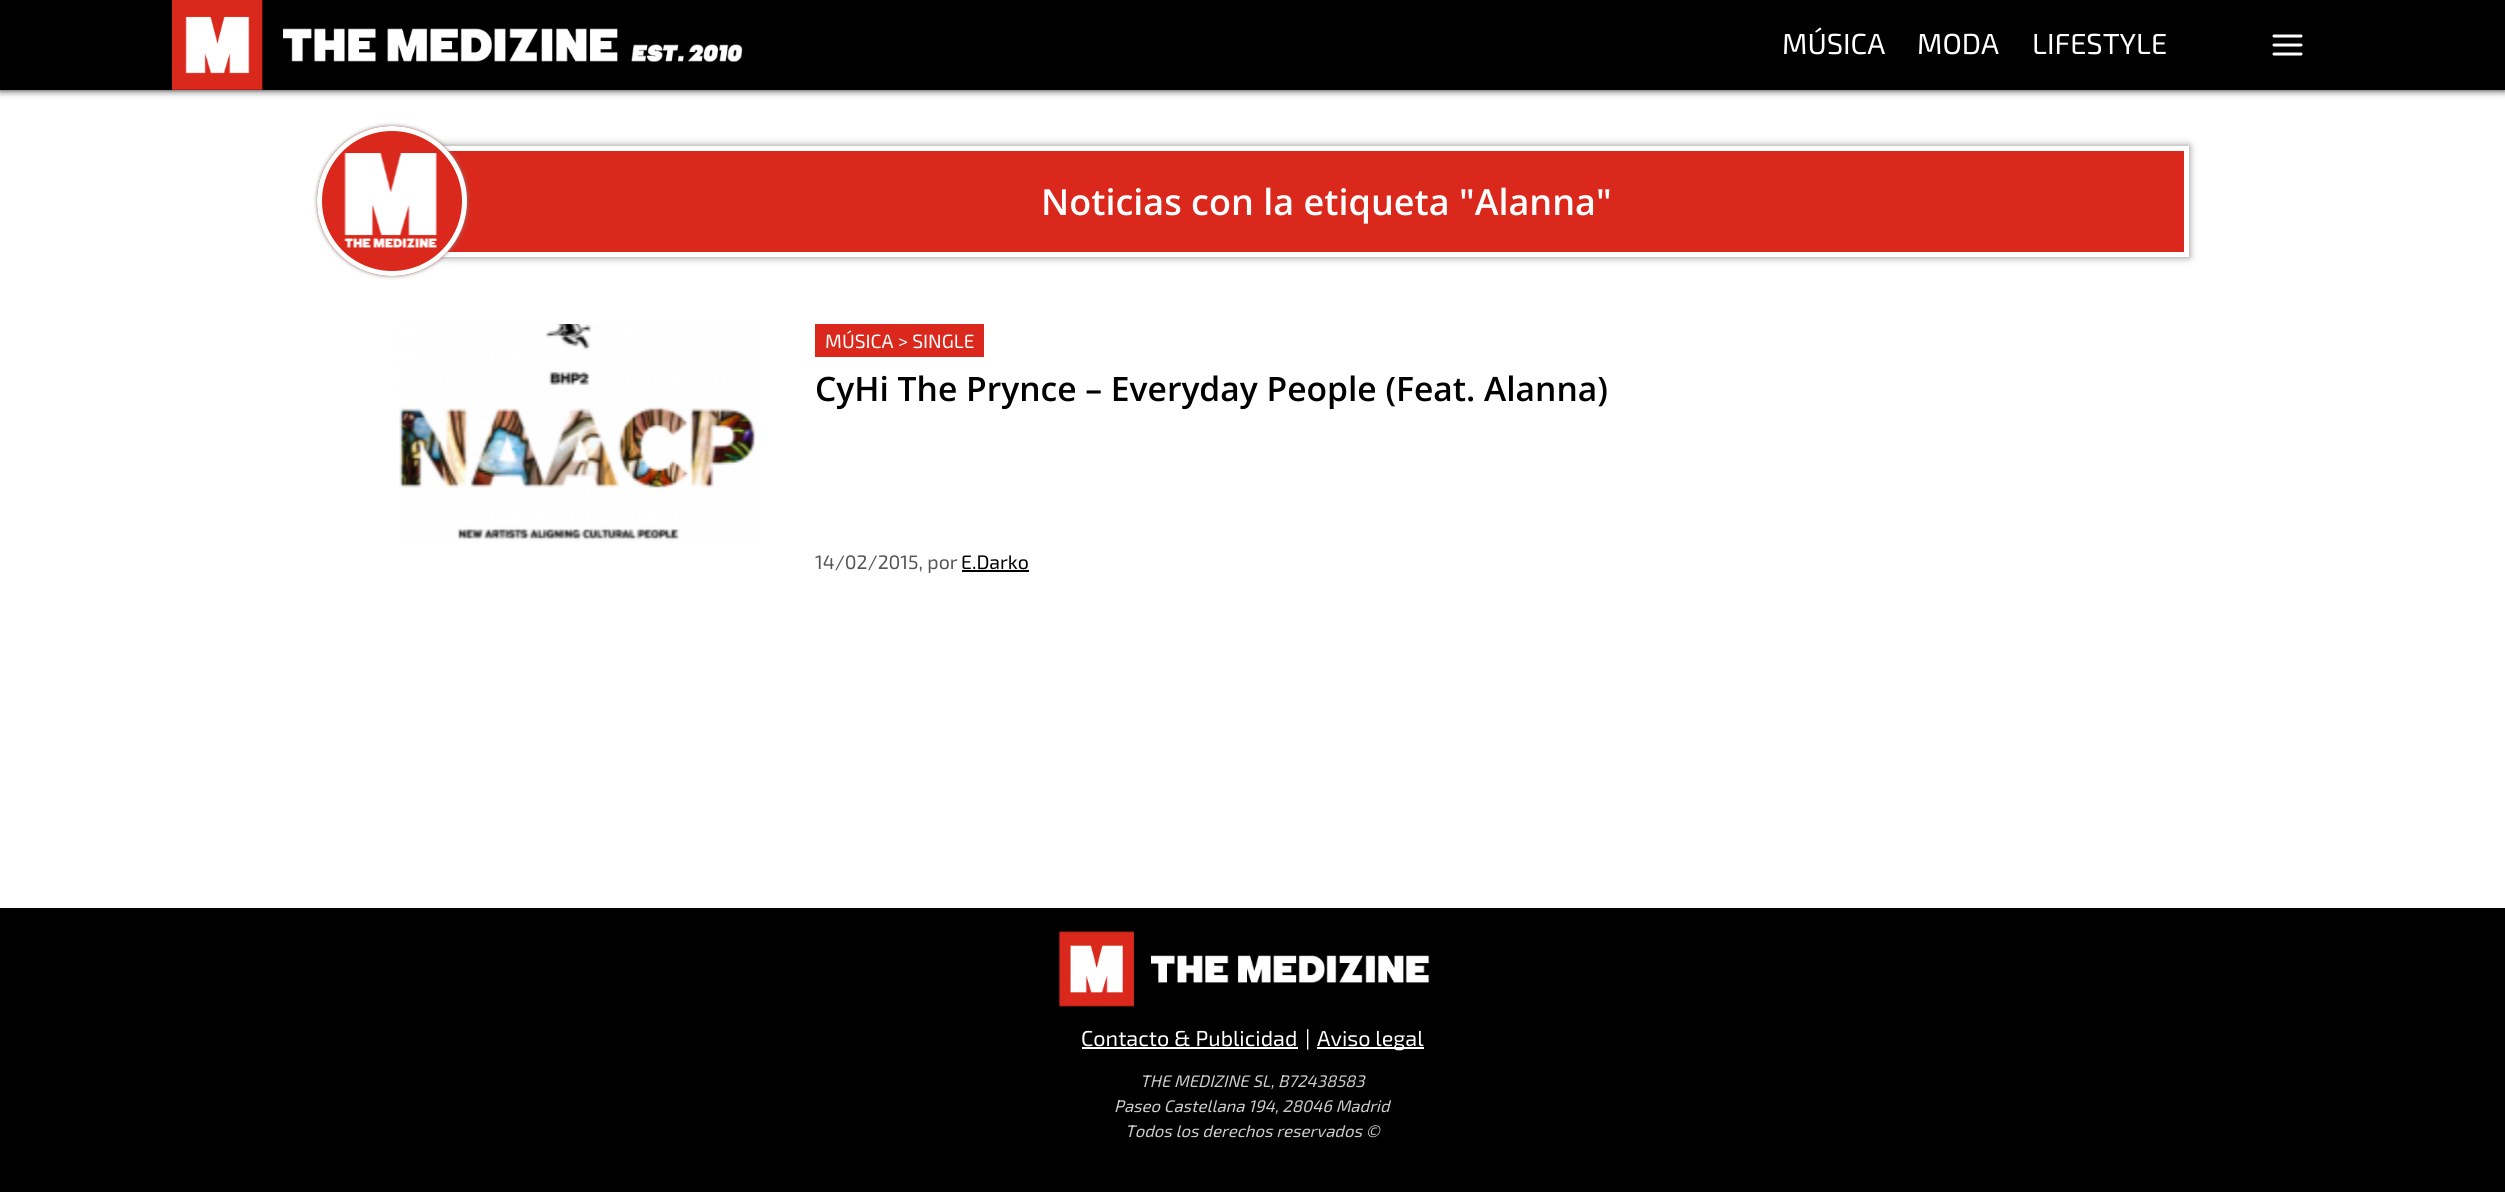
#include <cairo.h>
#include <math.h>
#include <stddef.h>

typedef struct { const char *family; double size; int italic, bold; unsigned color; } style_t;
static cairo_t *ctx;

static void ink(unsigned color) {
    cairo_set_source_rgb(ctx, (color >> 16) / 255.0, (color >> 8 & 255) / 255.0, (color & 255) / 255.0);
}

static void write(double x, double y, const char *s, const style_t *st) {
    cairo_select_font_face(ctx, st->family, st->italic ? CAIRO_FONT_SLANT_ITALIC : CAIRO_FONT_SLANT_NORMAL,
        st->bold ? CAIRO_FONT_WEIGHT_BOLD : CAIRO_FONT_WEIGHT_NORMAL);
    cairo_set_font_size(ctx, st->size);
    ink(st->color);
    cairo_move_to(ctx, x, y);
    cairo_show_text(ctx, s);
}

static void block(double x, double y, double w, double h, unsigned color) {
    ink(color);
    cairo_rectangle(ctx, x, y, w, h);
    cairo_fill(ctx);
}

static void round_path(double x, double y, double w, double h, double r) {
    cairo_new_sub_path(ctx);
    cairo_arc(ctx, x + w - r, y + h - r, r, 0, M_PI / 2);
    cairo_arc(ctx, x + r, y + h - r, r, M_PI / 2, M_PI);
    cairo_arc(ctx, x + r, y + r, r, M_PI, 1.5 * M_PI);
    cairo_arc(ctx, x + w - r, y + r, r, 1.5 * M_PI, 2 * M_PI);
    cairo_close_path(ctx);
}

static void blur_box(double x, double y, double w, double h, double r, double blur, double alpha) {
    cairo_push_group_with_content(ctx, CAIRO_CONTENT_ALPHA);
    cairo_set_operator(ctx, CAIRO_OPERATOR_SOURCE);
    for (int i = 15; i >= -15 && fmin(w, h) + blur * i / 3 > 0; i -= 2) {
        double e = blur * i / 6;
        cairo_set_source_rgba(ctx, 0, 0, 0, alpha * erfc((i - 1) / 8.5) / 2);
        round_path(x - e, y - e, w + 2 * e, h + 2 * e, fmax(0, fmin(r + e + blur * .6, fmin(w, h) / 2 + e)));
        cairo_fill(ctx);
    }
    cairo_pattern_t *soft = cairo_pop_group(ctx);
    cairo_mask(ctx, soft);
    cairo_pattern_destroy(soft);
}

static void paste(const char *path, double x, double y, double w, double h) {
    cairo_surface_t *image = cairo_image_surface_create_from_png(path);
    cairo_save(ctx);
    cairo_set_source_surface(ctx, image, x, y);
    cairo_rectangle(ctx, x, y, w, h);
    cairo_fill(ctx);
    cairo_restore(ctx);
    cairo_surface_destroy(image);
}

static const style_t s1 = {"Exo 2", 29, 0, 0, 0xffffff};
static const style_t s2 = {"Open Sans SemiBold", 36, 0, 0, 0xffffff};
static const style_t s3 = {"Exo 2", 19.25, 0, 0, 0xffffff};
static const style_t s4 = {"Open Sans SemiBold", 33.6, 0, 0, 0x000000};
static const style_t s5 = {"Exo 2", 19.5, 0, 0, 0x555555};
static const style_t s6 = {"Exo 2", 19.5, 0, 0, 0x000000};
static const style_t s7 = {"Exo 2", 21.6, 0, 0, 0xffffff};
static const style_t s8 = {"Exo 2", 16.75, 1, 0, 0xcccccc};

int main(void) {
    cairo_surface_t *surface = cairo_image_surface_create(CAIRO_FORMAT_RGB24, 2505, 1192);
    ctx = cairo_create(surface);
    cairo_font_options_t *options = cairo_font_options_create();
    cairo_font_options_set_hint_metrics(options, CAIRO_HINT_METRICS_OFF);
    cairo_font_options_set_hint_style(options, CAIRO_HINT_STYLE_NONE);
    cairo_set_font_options(ctx, options);
    cairo_set_miter_limit(ctx, 4);
    ink(0xffffff);
    cairo_paint(ctx);
    ink(0x000000);
    blur_box(0, 0, 2505, 90, 0, 4, 0.9);
    block(0, 0, 2505, 90, 0x000000);
    paste("pic1.png", 172, 0, 571, 90);
    write(1782, 54, "MÚSICA", &s1);
    write(1917, 54, "MODA", &s1);
    write(2032, 54, "LIFESTYLE", &s1);
    cairo_new_path(ctx);
    cairo_move_to(ctx, 2274, 45);
    cairo_line_to(ctx, 2301, 45);
    cairo_move_to(ctx, 2274, 36);
    cairo_line_to(ctx, 2301, 36);
    cairo_move_to(ctx, 2274, 54);
    cairo_line_to(ctx, 2301, 54);
    cairo_set_line_width(ctx, 3);
    cairo_set_line_cap(ctx, CAIRO_LINE_CAP_ROUND);
    cairo_set_line_join(ctx, CAIRO_LINE_JOIN_ROUND);
    cairo_stroke(ctx);
    ink(0x888888);
    blur_box(392, 146, 1797, 111, 0, 4, 1);
    block(447, 151, 1737, 101, 0xda291c);
    cairo_rectangle(ctx, 394.5, 148.5, 1792, 106);
    ink(0xffffff);
    cairo_set_line_width(ctx, 5);
    cairo_set_line_cap(ctx, CAIRO_LINE_CAP_BUTT);
    cairo_set_line_join(ctx, CAIRO_LINE_JOIN_MITER);
    cairo_stroke(ctx);
    ink(0x888888);
    blur_box(317, 126, 150, 150, 75, 2, 1);
    ink(0xda291c);
    cairo_arc(ctx, 392, 201, 75, 0, 2 * M_PI);
    cairo_fill(ctx);
    paste("pic2.png", 344, 153, 93, 95);
    cairo_arc(ctx, 392, 201, 72.5, 0, 2 * M_PI);
    ink(0xffffff);
    cairo_stroke(ctx);
    write(1041, 215, "Noticias con la etiqueta \"Alanna\"", &s2);
    paste("pic3.png", 399, 324, 357, 217);
    block(815, 324, 169, 33, 0xda291c);
    write(825, 348, "MÚSICA > SINGLE", &s3);
    write(815, 401, "CyHi The Prynce – Everyday People (Feat. Alanna)", &s4);
    write(815, 569, "14/02/2015, por", &s5);
    write(961, 569, "E.Darko", &s6);
    block(962, 570, 67, 2, 0x000000);
    block(0, 908, 2505, 284, 0x000000);
    paste("pic4.png", 1059, 931, 371, 76);
    write(1081, 1046, "Contacto & Publicidad", &s7);
    block(1082, 1047, 216, 2, 0xffffff);
    write(1305, 1046, "|", &s7);
    block(1317, 1047, 107, 2, 0xffffff);
    write(1317, 1046, "Aviso legal", &s7);
    write(1140, 1087, "THE MEDIZINE SL, B72438583", &s8);
    write(1114, 1112, "Paseo Castellana 194, 28046 Madrid", &s8);
    write(1125, 1137, "Todos los derechos reservados ©", &s8);
    cairo_surface_write_to_png(surface, "screenshot.png");
    cairo_font_options_destroy(options);
    cairo_destroy(ctx);
    cairo_surface_destroy(surface);
    return 0;
}
